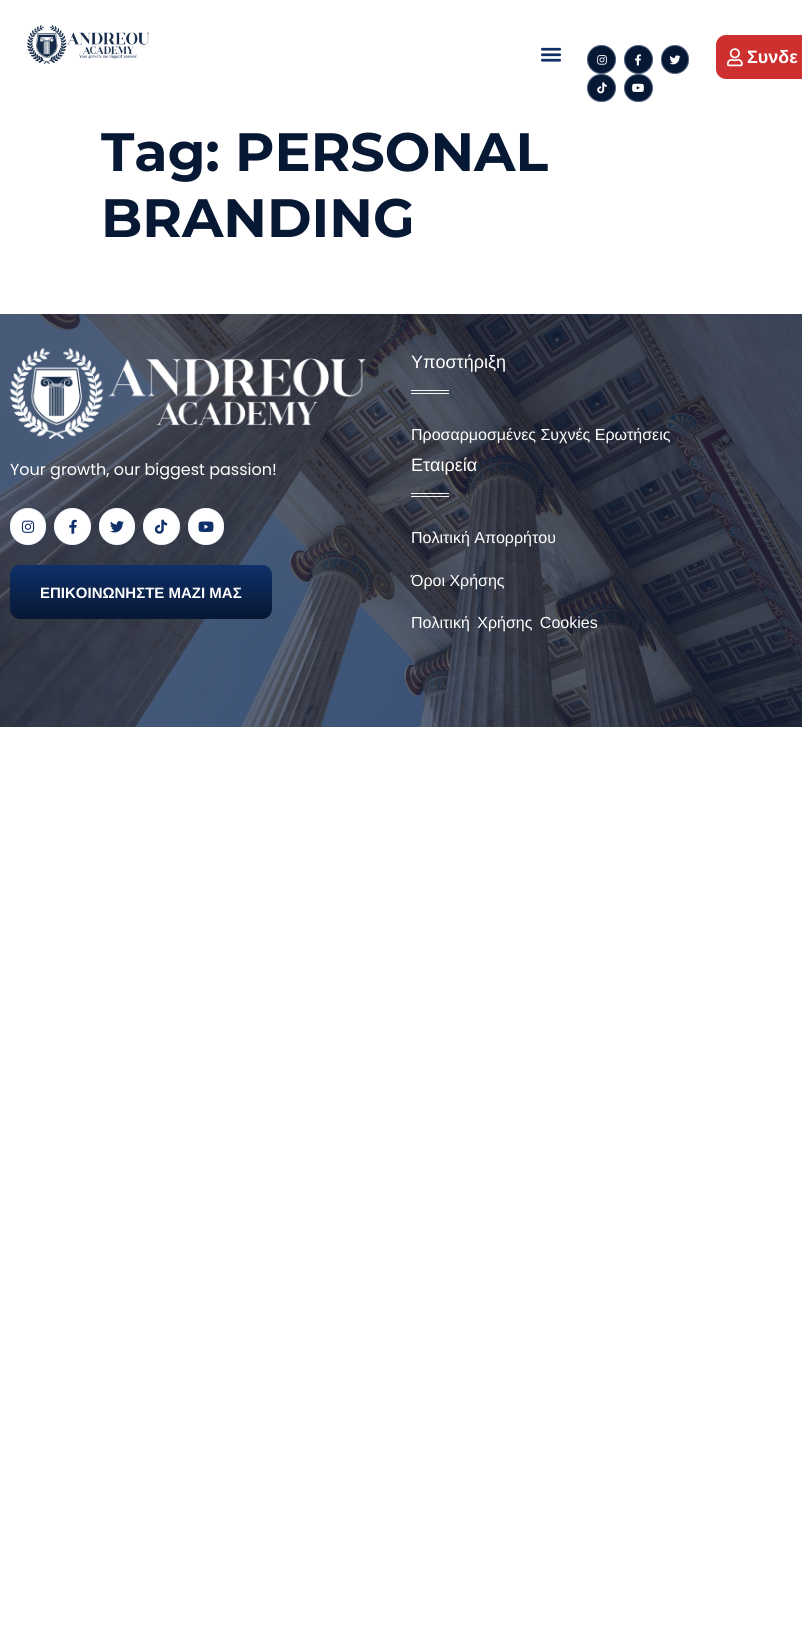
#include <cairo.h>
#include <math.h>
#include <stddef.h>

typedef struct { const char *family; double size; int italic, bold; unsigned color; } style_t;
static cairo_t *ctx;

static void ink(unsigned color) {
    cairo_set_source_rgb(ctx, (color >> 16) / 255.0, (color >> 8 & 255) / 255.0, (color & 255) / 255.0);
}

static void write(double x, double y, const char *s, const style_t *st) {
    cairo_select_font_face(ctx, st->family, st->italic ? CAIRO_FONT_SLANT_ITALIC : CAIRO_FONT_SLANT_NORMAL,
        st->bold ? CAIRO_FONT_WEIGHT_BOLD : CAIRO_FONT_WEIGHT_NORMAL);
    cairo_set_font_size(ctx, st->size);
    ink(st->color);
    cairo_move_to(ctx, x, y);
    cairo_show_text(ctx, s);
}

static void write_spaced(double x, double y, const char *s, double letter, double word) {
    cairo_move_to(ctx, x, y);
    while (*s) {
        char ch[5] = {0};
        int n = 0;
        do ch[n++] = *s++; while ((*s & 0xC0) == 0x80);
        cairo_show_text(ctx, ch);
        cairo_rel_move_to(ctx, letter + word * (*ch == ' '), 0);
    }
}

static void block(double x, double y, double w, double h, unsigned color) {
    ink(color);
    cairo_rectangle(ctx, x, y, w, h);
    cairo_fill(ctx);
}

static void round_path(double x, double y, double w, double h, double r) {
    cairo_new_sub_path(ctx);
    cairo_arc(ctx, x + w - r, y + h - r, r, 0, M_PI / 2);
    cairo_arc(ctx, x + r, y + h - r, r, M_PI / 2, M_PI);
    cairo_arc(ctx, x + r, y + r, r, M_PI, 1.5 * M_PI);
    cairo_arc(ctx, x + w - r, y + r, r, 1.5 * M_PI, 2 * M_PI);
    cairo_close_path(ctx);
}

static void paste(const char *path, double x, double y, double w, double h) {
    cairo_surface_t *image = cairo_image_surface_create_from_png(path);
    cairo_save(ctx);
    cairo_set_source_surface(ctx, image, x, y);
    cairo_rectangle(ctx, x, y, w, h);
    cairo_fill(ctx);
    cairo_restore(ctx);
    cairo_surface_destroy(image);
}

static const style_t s1 = {"Liberation Sans", 18, 0, 1, 0xffffff};
static const style_t s2 = {"Montserrat", 54, 0, 1, 0x071834};
static const style_t s3 = {"Poppins", 16, 0, 0, 0xffffff};
static const style_t s4 = {"Liberation Sans", 15, 0, 1, 0xffffff};
static const style_t s5 = {"Liberation Sans", 18, 0, 0, 0xffffff};
static const style_t s6 = {"Liberation Sans", 16, 0, 0, 0xffffff};

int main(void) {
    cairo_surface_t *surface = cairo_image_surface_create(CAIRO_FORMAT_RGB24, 802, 1645);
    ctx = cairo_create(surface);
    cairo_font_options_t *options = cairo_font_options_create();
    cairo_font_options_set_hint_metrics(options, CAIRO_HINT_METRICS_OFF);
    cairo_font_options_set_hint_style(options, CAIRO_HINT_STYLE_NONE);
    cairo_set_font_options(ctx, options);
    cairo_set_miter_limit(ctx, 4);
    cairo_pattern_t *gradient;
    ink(0xffffff);
    cairo_paint(ctx);
    paste("pic1.png", 27, 25, 122, 39);
    paste("pic2.png", 540, 47, 22, 15);
    ink(0x071834);
    cairo_arc(ctx, 601.5, 59.5, 14.5, 0, 2 * M_PI);
    cairo_fill(ctx);
    cairo_arc(ctx, 601.5, 59.5, 14, 0, 2 * M_PI);
    cairo_set_source_rgba(ctx, 0.863, 0.91, 1, 0.35);
    cairo_set_line_width(ctx, 1);
    cairo_stroke(ctx);
    paste("pic3.png", 597, 55, 10, 10);
    ink(0x071834);
    cairo_arc(ctx, 638.5, 59.5, 14.5, 0, 2 * M_PI);
    cairo_fill(ctx);
    cairo_arc(ctx, 638.5, 59.5, 14, 0, 2 * M_PI);
    cairo_set_source_rgba(ctx, 0.863, 0.91, 1, 0.35);
    cairo_stroke(ctx);
    paste("pic4.png", 635, 54, 6, 12);
    ink(0x071834);
    round_path(661, 45, 28, 29, 14);
    cairo_fill(ctx);
    round_path(661.5, 45.5, 27, 28, 13.5);
    cairo_set_source_rgba(ctx, 0.863, 0.91, 1, 0.35);
    cairo_stroke(ctx);
    paste("pic5.png", 669, 55, 12, 10);
    ink(0x071834);
    round_path(587, 74, 29, 28, 14);
    cairo_fill(ctx);
    round_path(587.5, 74.5, 28, 27, 13.5);
    cairo_set_source_rgba(ctx, 0.863, 0.91, 1, 0.35);
    cairo_stroke(ctx);
    paste("pic6.png", 597, 82, 10, 12);
    ink(0x071834);
    round_path(624, 74, 29, 28, 14);
    cairo_fill(ctx);
    round_path(624.5, 74.5, 28, 27, 13.5);
    cairo_set_source_rgba(ctx, 0.863, 0.91, 1, 0.35);
    cairo_stroke(ctx);
    paste("pic7.png", 632, 83, 12, 9);
    ink(0xce3030);
    round_path(716, 35, 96, 44, 10);
    cairo_fill(ctx);
    paste("pic8.png", 727, 48, 16, 19);
    write(747, 63, "Συνδε", &s1);
    write(101, 171, "Tag: PERSONAL", &s2);
    write(101, 237, "BRANDING", &s2);
    paste("pic9.png", 0, 314, 802, 413);
    paste("pic10.png", 10, 348, 356, 91);
    write(10, 475, "Your growth, our biggest passion!", &s3);
    round_path(10, 508, 36, 37, 18);
    cairo_fill(ctx);
    round_path(10.5, 508.5, 35, 36, 17.5);
    cairo_set_source_rgba(ctx, 0.863, 0.91, 1, 0.35);
    cairo_stroke(ctx);
    paste("pic11.png", 21, 520, 14, 13);
    ink(0xffffff);
    cairo_arc(ctx, 72.5, 526.5, 18.5, 0, 2 * M_PI);
    cairo_fill(ctx);
    cairo_arc(ctx, 72.5, 526.5, 18, 0, 2 * M_PI);
    cairo_set_source_rgba(ctx, 0.863, 0.91, 1, 0.35);
    cairo_stroke(ctx);
    paste("pic12.png", 69, 519, 8, 15);
    ink(0xffffff);
    round_path(99, 508, 36, 37, 18);
    cairo_fill(ctx);
    round_path(99.5, 508.5, 35, 36, 17.5);
    cairo_set_source_rgba(ctx, 0.863, 0.91, 1, 0.35);
    cairo_stroke(ctx);
    paste("pic13.png", 110, 521, 14, 12);
    ink(0xffffff);
    cairo_arc(ctx, 161.5, 526.5, 18.5, 0, 2 * M_PI);
    cairo_fill(ctx);
    cairo_arc(ctx, 161.5, 526.5, 18, 0, 2 * M_PI);
    cairo_set_source_rgba(ctx, 0.863, 0.91, 1, 0.35);
    cairo_stroke(ctx);
    paste("pic14.png", 154, 519, 14, 15);
    ink(0xffffff);
    round_path(188, 508, 36, 37, 18);
    cairo_fill(ctx);
    round_path(188.5, 508.5, 35, 36, 17.5);
    cairo_set_source_rgba(ctx, 0.863, 0.91, 1, 0.35);
    cairo_stroke(ctx);
    paste("pic15.png", 198, 521, 16, 11);
    gradient = cairo_pattern_create_linear(141, 565, 141, 619);
    cairo_pattern_add_color_stop_rgba(gradient, 0, 0.059, 0.188, 0.412, 1);
    cairo_pattern_add_color_stop_rgba(gradient, 1, 0.027, 0.094, 0.204, 1);
    cairo_set_source(ctx, gradient);
    cairo_pattern_destroy(gradient);
    round_path(10, 565, 262, 54, 10);
    cairo_fill(ctx);
    write(40, 598, "ΕΠΙΚΟΙΝΩΝΗΣΤΕ ΜΑΖΙ ΜΑΣ", &s4);
    write(411, 368, "Υποστήριξη", &s5);
    block(411, 390, 38, 1, 0xf5f5f5);
    block(411, 393, 38, 1, 0xf5f5f5);
    write(411, 440, "Προσαρμοσμένες Συχνές Ερωτήσεις", &s6);
    write(411, 471, "Εταιρεία", &s5);
    block(411, 493, 38, 1, 0xf5f5f5);
    block(411, 496, 38, 1, 0xf5f5f5);
    write(411, 543, "Πολιτική Απορρήτου", &s6);
    write(411, 586, "Όροι Χρήσης", &s6);
    write_spaced(411, 628, "Πολιτική Χρήσης Cookies", 0, 3);
    cairo_surface_write_to_png(surface, "screenshot.png");
    cairo_font_options_destroy(options);
    cairo_destroy(ctx);
    cairo_surface_destroy(surface);
    return 0;
}
